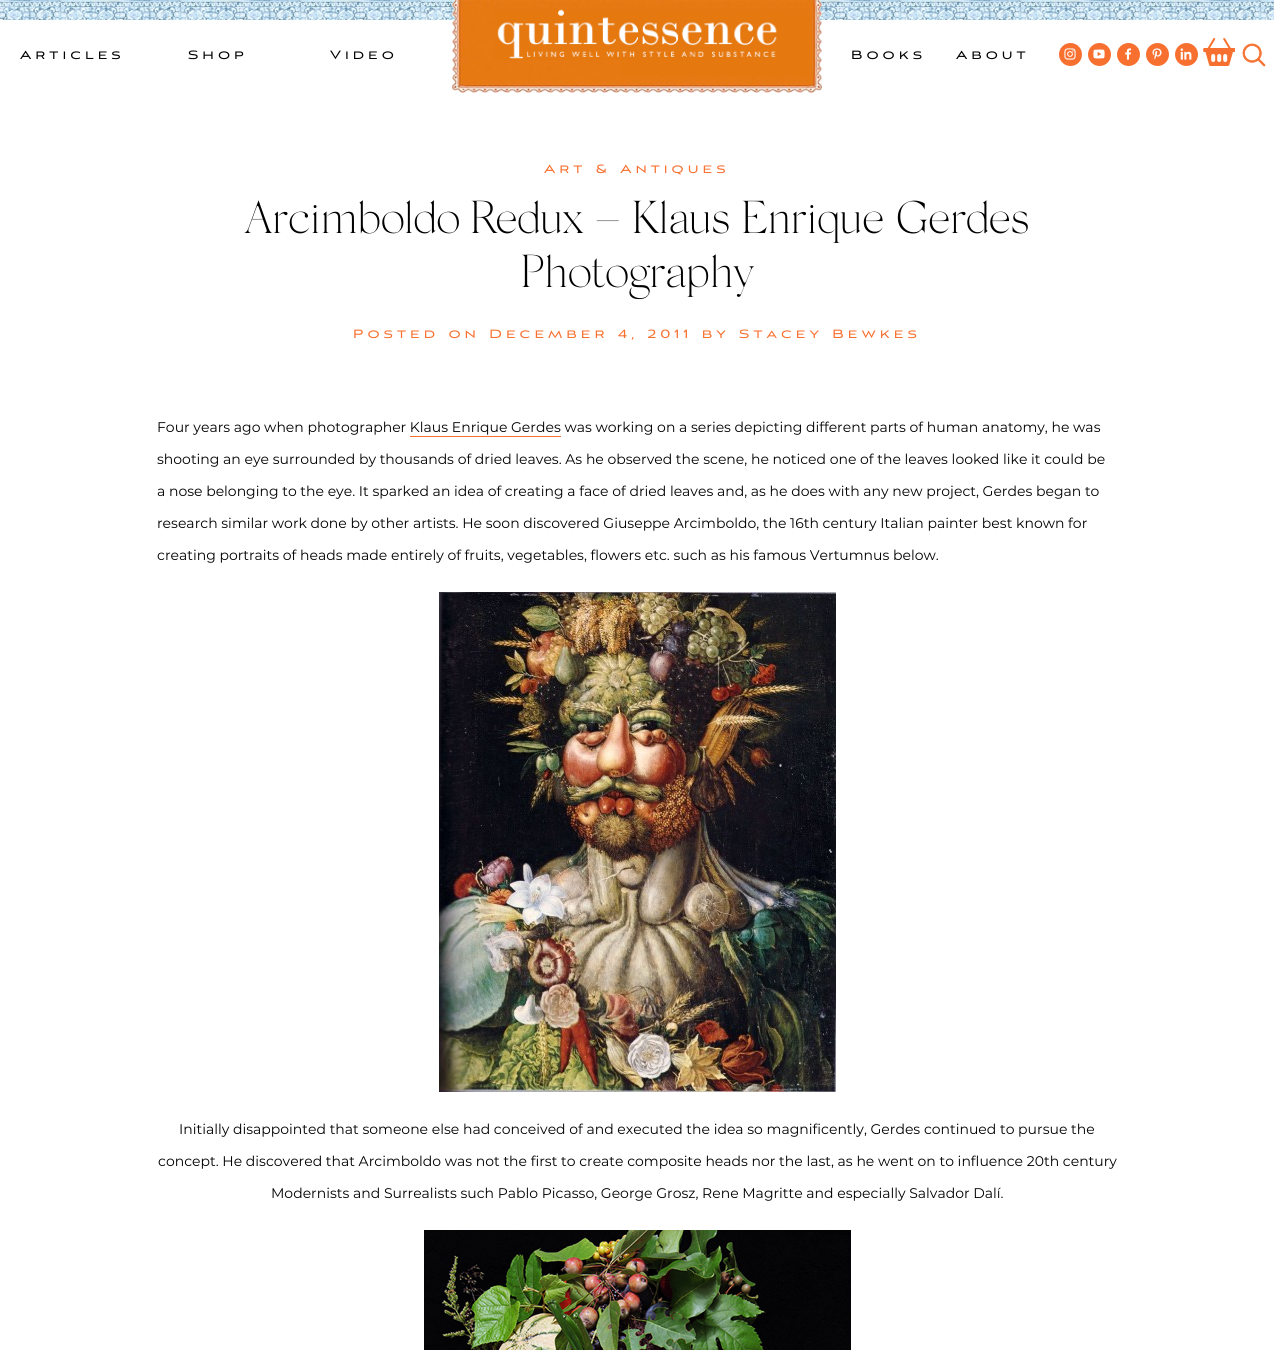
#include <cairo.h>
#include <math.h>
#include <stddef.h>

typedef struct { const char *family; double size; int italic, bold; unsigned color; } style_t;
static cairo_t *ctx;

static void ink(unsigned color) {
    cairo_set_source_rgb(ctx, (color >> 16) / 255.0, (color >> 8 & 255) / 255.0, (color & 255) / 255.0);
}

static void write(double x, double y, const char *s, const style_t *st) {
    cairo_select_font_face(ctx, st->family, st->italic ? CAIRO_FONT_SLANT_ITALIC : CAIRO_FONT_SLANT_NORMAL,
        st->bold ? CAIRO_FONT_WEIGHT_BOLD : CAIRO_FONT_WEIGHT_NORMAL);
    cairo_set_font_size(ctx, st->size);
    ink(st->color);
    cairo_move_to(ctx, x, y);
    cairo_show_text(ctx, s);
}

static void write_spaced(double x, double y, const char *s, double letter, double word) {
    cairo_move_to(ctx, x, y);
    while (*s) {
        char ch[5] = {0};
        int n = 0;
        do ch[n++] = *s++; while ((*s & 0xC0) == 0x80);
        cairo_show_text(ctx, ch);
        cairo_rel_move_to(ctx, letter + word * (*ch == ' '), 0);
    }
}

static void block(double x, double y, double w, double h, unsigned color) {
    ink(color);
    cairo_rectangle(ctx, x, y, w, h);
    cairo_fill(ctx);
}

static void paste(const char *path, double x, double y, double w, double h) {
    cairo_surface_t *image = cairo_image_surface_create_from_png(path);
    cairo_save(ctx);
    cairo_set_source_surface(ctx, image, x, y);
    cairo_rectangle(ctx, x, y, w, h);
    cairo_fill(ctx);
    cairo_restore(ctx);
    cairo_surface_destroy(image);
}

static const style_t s1 = {"Montserrat", 14, 0, 0, 0x000000};

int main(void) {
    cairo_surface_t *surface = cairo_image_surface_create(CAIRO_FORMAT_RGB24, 1274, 1350);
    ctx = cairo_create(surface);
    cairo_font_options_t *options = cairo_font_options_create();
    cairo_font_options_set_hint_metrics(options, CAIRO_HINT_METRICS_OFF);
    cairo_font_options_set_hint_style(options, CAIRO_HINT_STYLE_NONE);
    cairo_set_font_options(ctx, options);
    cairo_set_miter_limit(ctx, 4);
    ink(0xffffff);
    cairo_paint(ctx);
    paste("pic1.png", 0, 0, 1274, 20);
    cairo_select_font_face(ctx, "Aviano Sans", CAIRO_FONT_SLANT_NORMAL, CAIRO_FONT_WEIGHT_NORMAL);
    cairo_set_font_size(ctx, 15);
    ink(0x000000);
    write_spaced(20, 59, "Articles", 4, 0);
    write_spaced(188, 59, "Shop", 4, 0);
    write_spaced(330, 59, "Video", 4, 0);
    paste("pic2.png", 452, 0, 370, 93);
    write_spaced(851, 59, "Books", 4, 0);
    write_spaced(956, 59, "About", 4, 0);
    ink(0xf8702f);
    cairo_new_path(ctx);
    cairo_arc(ctx, 1070.5, 54.5, 11.5, 0, 2 * M_PI);
    cairo_fill(ctx);
    paste("pic3.png", 1064, 48, 12, 12);
    cairo_arc(ctx, 1099.5, 54.5, 11.5, 0, 2 * M_PI);
    cairo_fill(ctx);
    paste("pic4.png", 1093, 49, 12, 10);
    cairo_arc(ctx, 1128.5, 54.5, 11.5, 0, 2 * M_PI);
    cairo_fill(ctx);
    paste("pic5.png", 1125, 48, 6, 12);
    cairo_arc(ctx, 1157.5, 54.5, 11.5, 0, 2 * M_PI);
    cairo_fill(ctx);
    paste("pic6.png", 1152, 48, 10, 12);
    cairo_arc(ctx, 1186.5, 54.5, 11.5, 0, 2 * M_PI);
    cairo_fill(ctx);
    paste("pic7.png", 1180, 48, 12, 12);
    paste("pic8.png", 1203, 38, 32, 28);
    paste("pic9.png", 1242, 43, 24, 24);
    write_spaced(544, 173, "Art & Antiques", 4, 0);
    cairo_select_font_face(ctx, "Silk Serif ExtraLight", CAIRO_FONT_SLANT_NORMAL, CAIRO_FONT_WEIGHT_NORMAL);
    cairo_set_font_size(ctx, 46);
    ink(0x000000);
    write_spaced(245, 233, "Arcimboldo Redux – Klaus Enrique Gerdes", -1, 0);
    write_spaced(521, 287, "Photography", -1, 0);
    cairo_select_font_face(ctx, "Aviano Sans", CAIRO_FONT_SLANT_NORMAL, CAIRO_FONT_WEIGHT_NORMAL);
    cairo_set_font_size(ctx, 15);
    ink(0xf8702f);
    write_spaced(353, 338, "Posted on December 4, 2011 by Stacey Bewkes", 4, 0);
    write(157, 432, "Four years ago when photographer Klaus Enrique Gerdes was working on a series depicting different parts of human anatomy, he was", &s1);
    block(410, 436, 151, 1, 0xf8702f);
    write(157, 464, "shooting an eye surrounded by thousands of dried leaves. As he observed the scene, he noticed one of the leaves looked like it could be", &s1);
    write(157, 496, "a nose belonging to the eye. It sparked an idea of creating a face of dried leaves and, as he does with any new project, Gerdes began to", &s1);
    write(157, 528, "research similar work done by other artists. He soon discovered Giuseppe Arcimboldo, the 16th century Italian painter best known for", &s1);
    write(157, 560, "creating portraits of heads made entirely of fruits, vegetables, flowers etc. such as his famous Vertumnus below.", &s1);
    paste("pic10.png", 439, 592, 397, 500);
    write(179, 1134, "Initially disappointed that someone else had conceived of and executed the idea so magnificently, Gerdes continued to pursue the", &s1);
    write(158, 1166, "concept. He discovered that Arcimboldo was not the first to create composite heads nor the last, as he went on to influence 20th century", &s1);
    write(271, 1198, "Modernists and Surrealists such Pablo Picasso, George Grosz, Rene Magritte and especially Salvador Dalí.", &s1);
    paste("pic11.png", 424, 1230, 427, 120);
    cairo_surface_write_to_png(surface, "screenshot.png");
    cairo_font_options_destroy(options);
    cairo_destroy(ctx);
    cairo_surface_destroy(surface);
    return 0;
}
